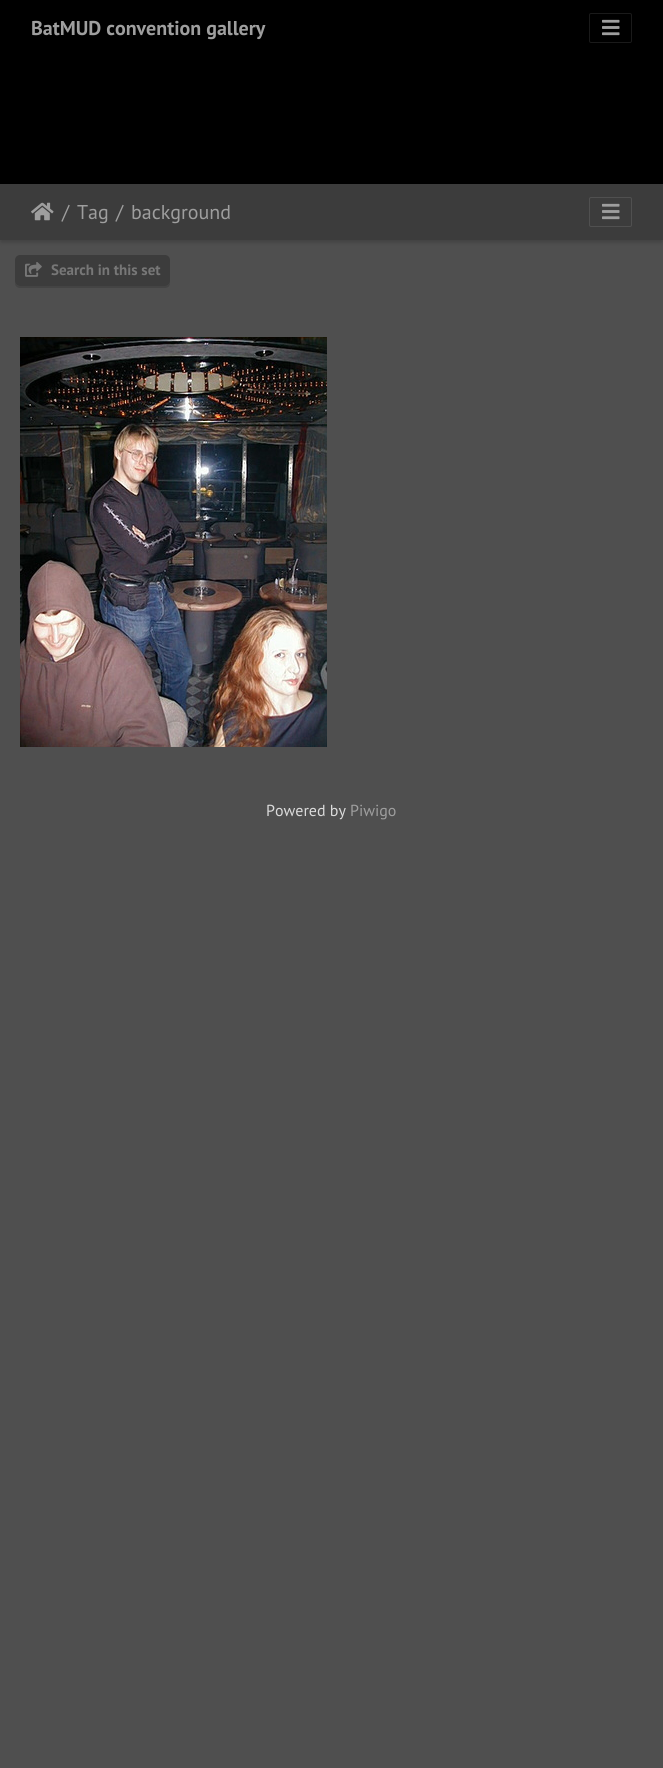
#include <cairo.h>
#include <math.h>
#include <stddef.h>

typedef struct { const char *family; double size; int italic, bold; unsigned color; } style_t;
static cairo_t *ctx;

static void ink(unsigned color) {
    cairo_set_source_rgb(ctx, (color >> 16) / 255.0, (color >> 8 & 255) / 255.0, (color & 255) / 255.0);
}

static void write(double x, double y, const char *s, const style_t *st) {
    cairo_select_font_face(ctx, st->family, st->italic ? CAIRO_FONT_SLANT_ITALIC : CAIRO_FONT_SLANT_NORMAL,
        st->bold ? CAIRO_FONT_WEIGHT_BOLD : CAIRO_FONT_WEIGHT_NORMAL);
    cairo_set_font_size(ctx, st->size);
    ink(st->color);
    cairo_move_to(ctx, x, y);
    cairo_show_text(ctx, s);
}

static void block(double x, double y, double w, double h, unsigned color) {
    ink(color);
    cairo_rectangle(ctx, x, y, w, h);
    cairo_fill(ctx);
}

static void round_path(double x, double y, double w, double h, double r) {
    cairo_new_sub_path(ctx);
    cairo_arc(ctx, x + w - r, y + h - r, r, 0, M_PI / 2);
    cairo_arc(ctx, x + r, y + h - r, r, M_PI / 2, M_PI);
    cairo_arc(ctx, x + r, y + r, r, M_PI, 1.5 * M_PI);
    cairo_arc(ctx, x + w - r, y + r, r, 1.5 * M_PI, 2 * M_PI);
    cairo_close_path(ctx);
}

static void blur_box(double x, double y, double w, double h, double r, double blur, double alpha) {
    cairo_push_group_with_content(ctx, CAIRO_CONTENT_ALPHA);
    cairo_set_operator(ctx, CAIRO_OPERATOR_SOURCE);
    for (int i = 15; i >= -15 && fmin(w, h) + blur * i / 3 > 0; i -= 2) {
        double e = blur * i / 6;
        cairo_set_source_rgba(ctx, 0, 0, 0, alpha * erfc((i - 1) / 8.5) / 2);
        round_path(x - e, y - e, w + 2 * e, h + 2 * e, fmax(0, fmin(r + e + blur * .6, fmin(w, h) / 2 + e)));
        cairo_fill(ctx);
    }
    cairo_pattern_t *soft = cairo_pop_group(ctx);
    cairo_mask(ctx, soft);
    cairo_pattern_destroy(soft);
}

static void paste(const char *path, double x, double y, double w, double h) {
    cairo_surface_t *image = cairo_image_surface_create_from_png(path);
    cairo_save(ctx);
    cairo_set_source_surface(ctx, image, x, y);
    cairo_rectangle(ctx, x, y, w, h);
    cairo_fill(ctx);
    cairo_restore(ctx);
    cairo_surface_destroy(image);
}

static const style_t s1 = {"PT Sans", 20, 0, 1, 0x9e9e9e};
static const style_t s2 = {"PT Sans", 20, 0, 0, 0x9e9e9e};
static const style_t s3 = {"PT Sans", 15, 0, 1, 0x777777};
static const style_t s4 = {"PT Sans", 16, 0, 0, 0xdbdbdb};
static const style_t s5 = {"PT Sans", 16, 0, 0, 0x9e9e9e};

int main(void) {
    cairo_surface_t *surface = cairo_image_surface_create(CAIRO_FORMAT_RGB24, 663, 1768);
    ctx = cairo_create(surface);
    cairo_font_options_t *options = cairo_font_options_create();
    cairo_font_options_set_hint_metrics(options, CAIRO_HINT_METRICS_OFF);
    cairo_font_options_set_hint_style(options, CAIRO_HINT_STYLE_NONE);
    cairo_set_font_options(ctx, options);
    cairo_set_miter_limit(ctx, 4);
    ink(0x4f4f4f);
    cairo_paint(ctx);
    block(0, 0, 663, 184, 0x000000);
    write(31, 35, "BatMUD convention gallery", &s1);
    round_path(589.5, 13.5, 42, 29, 1.5);
    ink(0x1a1a1a);
    cairo_set_line_width(ctx, 1);
    cairo_stroke(ctx);
    paste("pic1.png", 602, 19, 18, 17);
    ink(0x000000);
    blur_box(1, 188, 661, 54, 0, 2.5, 0.2);
    block(0, 184, 663, 56, 0x3c3c3c);
    paste("pic2.png", 31, 202, 23, 19);
    write(62, 219, "/", &s2);
    write(77, 219, "Tag", &s2);
    write(116, 219, "/", &s2);
    write(131, 219, "background", &s2);
    round_path(589.5, 197.5, 42, 29, 1.5);
    ink(0x505050);
    cairo_stroke(ctx);
    paste("pic3.png", 602, 203, 18, 17);
    ink(0x444444);
    cairo_new_path(ctx);
    cairo_move_to(ctx, 15, 281);
    cairo_line_to(ctx, 15, 283);
    cairo_curve_to(ctx, 15, 286, 17, 288, 20, 288);
    cairo_line_to(ctx, 165, 288);
    cairo_curve_to(ctx, 168, 288, 170, 286, 170, 283);
    cairo_line_to(ctx, 170, 281);
    cairo_curve_to(ctx, 170, 284, 168, 286, 165, 286);
    cairo_line_to(ctx, 20, 286);
    cairo_curve_to(ctx, 17, 286, 15, 284, 15, 281);
    cairo_close_path(ctx);
    cairo_fill(ctx);
    ink(0x3c3c3c);
    round_path(15, 255, 155, 31, 5);
    cairo_fill(ctx);
    paste("pic4.png", 25, 262, 17, 15);
    write(51, 275, "Search in this set", &s3);
    paste("pic5.png", 20, 337, 307, 410);
    write(266, 816, "Powered by", &s4);
    write(350, 816, "Piwigo", &s5);
    cairo_surface_write_to_png(surface, "screenshot.png");
    cairo_font_options_destroy(options);
    cairo_destroy(ctx);
    cairo_surface_destroy(surface);
    return 0;
}
